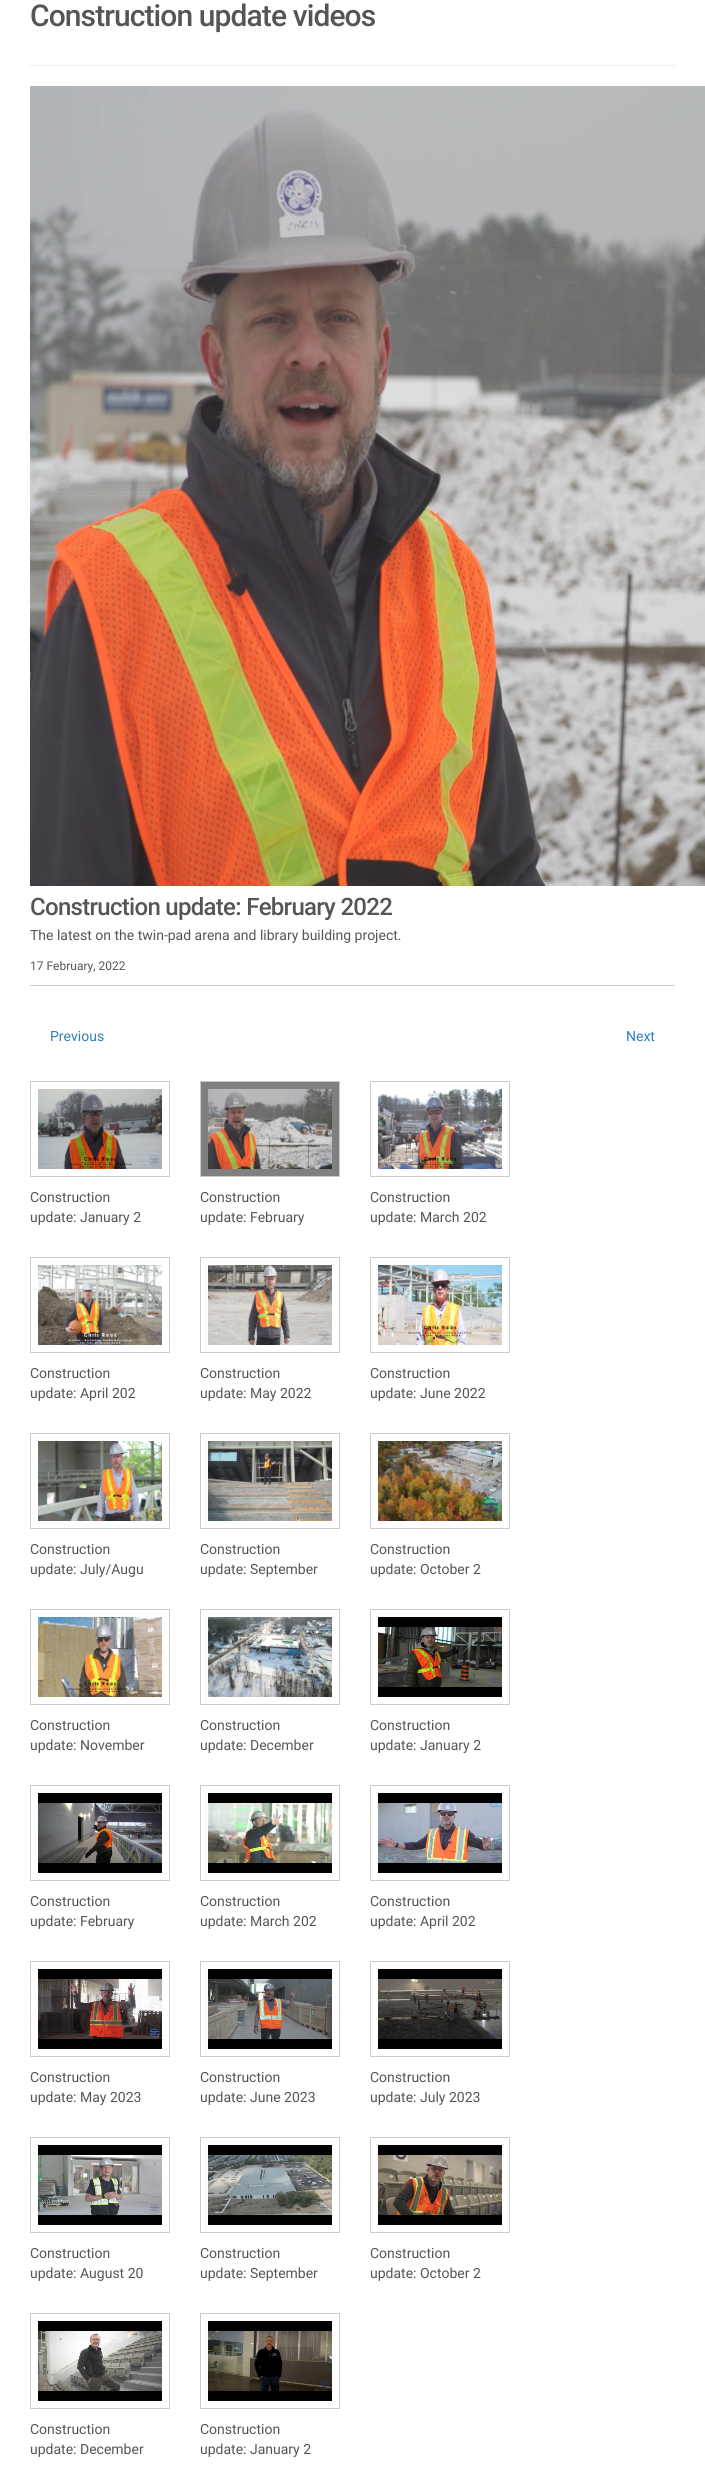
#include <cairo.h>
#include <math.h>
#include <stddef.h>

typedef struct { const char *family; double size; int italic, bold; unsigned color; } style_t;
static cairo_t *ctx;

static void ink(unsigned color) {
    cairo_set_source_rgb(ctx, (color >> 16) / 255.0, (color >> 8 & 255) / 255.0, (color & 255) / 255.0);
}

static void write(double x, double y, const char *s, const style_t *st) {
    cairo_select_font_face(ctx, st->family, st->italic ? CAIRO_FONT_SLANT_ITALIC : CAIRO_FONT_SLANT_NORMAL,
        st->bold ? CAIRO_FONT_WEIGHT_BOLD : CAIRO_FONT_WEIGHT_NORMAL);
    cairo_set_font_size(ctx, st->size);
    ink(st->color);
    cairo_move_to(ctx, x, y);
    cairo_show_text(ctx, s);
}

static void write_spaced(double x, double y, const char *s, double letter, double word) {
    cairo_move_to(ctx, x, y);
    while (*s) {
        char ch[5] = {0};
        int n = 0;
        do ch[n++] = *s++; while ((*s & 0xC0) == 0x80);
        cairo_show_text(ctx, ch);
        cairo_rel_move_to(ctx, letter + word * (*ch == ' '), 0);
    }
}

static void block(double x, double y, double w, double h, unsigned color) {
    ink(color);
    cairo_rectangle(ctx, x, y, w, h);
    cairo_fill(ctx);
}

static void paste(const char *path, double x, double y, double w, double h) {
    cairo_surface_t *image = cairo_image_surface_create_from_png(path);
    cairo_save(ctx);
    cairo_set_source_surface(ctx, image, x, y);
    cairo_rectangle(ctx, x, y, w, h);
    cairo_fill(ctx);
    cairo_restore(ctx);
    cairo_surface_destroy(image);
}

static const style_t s1 = {"Roboto", 14, 0, 0, 0x555555};
static const style_t s2 = {"Roboto", 12, 0, 0, 0x555555};
static const style_t s3 = {"Roboto", 14, 0, 0, 0x2980b9};

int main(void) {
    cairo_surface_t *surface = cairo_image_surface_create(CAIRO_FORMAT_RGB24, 705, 2484);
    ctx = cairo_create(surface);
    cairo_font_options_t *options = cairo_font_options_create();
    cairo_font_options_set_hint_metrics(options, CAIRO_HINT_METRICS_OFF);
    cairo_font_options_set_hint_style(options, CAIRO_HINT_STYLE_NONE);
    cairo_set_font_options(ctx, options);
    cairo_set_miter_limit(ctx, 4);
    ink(0xffffff);
    cairo_paint(ctx);
    block(30, 65, 645, 1, 0xeeeeee);
    cairo_select_font_face(ctx, "Roboto Medium", CAIRO_FONT_SLANT_NORMAL, CAIRO_FONT_WEIGHT_NORMAL);
    cairo_set_font_size(ctx, 30);
    ink(0x555555);
    write_spaced(30, 26, "Construction update videos", -0.9, 0);
    paste("pic1.png", 30, 86, 675, 800);
    cairo_set_font_size(ctx, 24);
    write_spaced(30, 915, "Construction update: February 2022", -0.7, 0);
    write(30, 940, "The latest on the twin-pad arena and library building project.", &s1);
    write(30, 970, "17 February, 2022", &s2);
    block(30, 985, 645, 1, 0xcccccc);
    write(50, 1041, "Previous", &s3);
    write(626, 1041, "Next", &s3);
    cairo_rectangle(ctx, 30.5, 1081.5, 139, 95);
    ink(0xcccccc);
    cairo_set_line_width(ctx, 1);
    cairo_stroke(ctx);
    paste("pic2.png", 38, 1089, 124, 80);
    write(30, 1202, "Construction", &s1);
    write(30, 1222, "update: January 2", &s1);
    ink(0x808080);
    cairo_rectangle(ctx, 200.5, 1081.5, 139, 95);
    cairo_fill_preserve(ctx);
    ink(0xcccccc);
    cairo_stroke(ctx);
    paste("pic3.png", 208, 1089, 124, 80);
    write(200, 1202, "Construction", &s1);
    write(200, 1222, "update: February", &s1);
    cairo_rectangle(ctx, 370.5, 1081.5, 139, 95);
    ink(0xcccccc);
    cairo_stroke(ctx);
    paste("pic4.png", 378, 1089, 124, 80);
    write(370, 1202, "Construction", &s1);
    write(370, 1222, "update: March 202", &s1);
    cairo_rectangle(ctx, 30.5, 1257.5, 139, 95);
    ink(0xcccccc);
    cairo_stroke(ctx);
    paste("pic5.png", 38, 1265, 124, 80);
    write(30, 1378, "Construction", &s1);
    write(30, 1398, "update: April 202", &s1);
    cairo_rectangle(ctx, 200.5, 1257.5, 139, 95);
    ink(0xcccccc);
    cairo_stroke(ctx);
    paste("pic6.png", 208, 1265, 124, 80);
    write(200, 1378, "Construction", &s1);
    write(200, 1398, "update: May 2022", &s1);
    cairo_rectangle(ctx, 370.5, 1257.5, 139, 95);
    ink(0xcccccc);
    cairo_stroke(ctx);
    paste("pic7.png", 378, 1265, 124, 80);
    write(370, 1378, "Construction", &s1);
    write(370, 1398, "update: June 2022", &s1);
    cairo_rectangle(ctx, 30.5, 1433.5, 139, 95);
    ink(0xcccccc);
    cairo_stroke(ctx);
    paste("pic8.png", 38, 1441, 124, 80);
    write(30, 1554, "Construction", &s1);
    write(30, 1574, "update: July/Augu", &s1);
    cairo_rectangle(ctx, 200.5, 1433.5, 139, 95);
    ink(0xcccccc);
    cairo_stroke(ctx);
    paste("pic9.png", 208, 1441, 124, 80);
    write(200, 1554, "Construction", &s1);
    write(200, 1574, "update: September", &s1);
    cairo_rectangle(ctx, 370.5, 1433.5, 139, 95);
    ink(0xcccccc);
    cairo_stroke(ctx);
    paste("pic10.png", 378, 1441, 124, 80);
    write(370, 1554, "Construction", &s1);
    write(370, 1574, "update: October 2", &s1);
    cairo_rectangle(ctx, 30.5, 1609.5, 139, 95);
    ink(0xcccccc);
    cairo_stroke(ctx);
    paste("pic11.png", 38, 1617, 124, 80);
    write(30, 1730, "Construction", &s1);
    write(30, 1750, "update: November", &s1);
    cairo_rectangle(ctx, 200.5, 1609.5, 139, 95);
    ink(0xcccccc);
    cairo_stroke(ctx);
    paste("pic12.png", 208, 1617, 124, 80);
    write(200, 1730, "Construction", &s1);
    write(200, 1750, "update: December", &s1);
    cairo_rectangle(ctx, 370.5, 1609.5, 139, 95);
    ink(0xcccccc);
    cairo_stroke(ctx);
    paste("pic13.png", 378, 1617, 124, 80);
    write(370, 1730, "Construction", &s1);
    write(370, 1750, "update: January 2", &s1);
    cairo_rectangle(ctx, 30.5, 1785.5, 139, 95);
    ink(0xcccccc);
    cairo_stroke(ctx);
    paste("pic14.png", 38, 1793, 124, 80);
    write(30, 1906, "Construction", &s1);
    write(30, 1926, "update: February", &s1);
    cairo_rectangle(ctx, 200.5, 1785.5, 139, 95);
    ink(0xcccccc);
    cairo_stroke(ctx);
    paste("pic15.png", 208, 1793, 124, 80);
    write(200, 1906, "Construction", &s1);
    write(200, 1926, "update: March 202", &s1);
    cairo_rectangle(ctx, 370.5, 1785.5, 139, 95);
    ink(0xcccccc);
    cairo_stroke(ctx);
    paste("pic16.png", 378, 1793, 124, 80);
    write(370, 1906, "Construction", &s1);
    write(370, 1926, "update: April 202", &s1);
    cairo_rectangle(ctx, 30.5, 1961.5, 139, 95);
    ink(0xcccccc);
    cairo_stroke(ctx);
    paste("pic17.png", 38, 1969, 124, 80);
    write(30, 2082, "Construction", &s1);
    write(30, 2102, "update: May 2023", &s1);
    cairo_rectangle(ctx, 200.5, 1961.5, 139, 95);
    ink(0xcccccc);
    cairo_stroke(ctx);
    paste("pic18.png", 208, 1969, 124, 80);
    write(200, 2082, "Construction", &s1);
    write(200, 2102, "update: June 2023", &s1);
    cairo_rectangle(ctx, 370.5, 1961.5, 139, 95);
    ink(0xcccccc);
    cairo_stroke(ctx);
    paste("pic19.png", 378, 1969, 124, 80);
    write(370, 2082, "Construction", &s1);
    write(370, 2102, "update: July 2023", &s1);
    cairo_rectangle(ctx, 30.5, 2137.5, 139, 95);
    ink(0xcccccc);
    cairo_stroke(ctx);
    paste("pic20.png", 38, 2145, 124, 80);
    write(30, 2258, "Construction", &s1);
    write(30, 2278, "update: August 20", &s1);
    cairo_rectangle(ctx, 200.5, 2137.5, 139, 95);
    ink(0xcccccc);
    cairo_stroke(ctx);
    paste("pic21.png", 208, 2145, 124, 80);
    write(200, 2258, "Construction", &s1);
    write(200, 2278, "update: September", &s1);
    cairo_rectangle(ctx, 370.5, 2137.5, 139, 95);
    ink(0xcccccc);
    cairo_stroke(ctx);
    paste("pic22.png", 378, 2145, 124, 80);
    write(370, 2258, "Construction", &s1);
    write(370, 2278, "update: October 2", &s1);
    cairo_rectangle(ctx, 30.5, 2313.5, 139, 95);
    ink(0xcccccc);
    cairo_stroke(ctx);
    paste("pic23.png", 38, 2321, 124, 80);
    write(30, 2434, "Construction", &s1);
    write(30, 2454, "update: December", &s1);
    cairo_rectangle(ctx, 200.5, 2313.5, 139, 95);
    ink(0xcccccc);
    cairo_stroke(ctx);
    paste("pic24.png", 208, 2321, 124, 80);
    write(200, 2434, "Construction", &s1);
    write(200, 2454, "update: January 2", &s1);
    cairo_surface_write_to_png(surface, "screenshot.png");
    cairo_font_options_destroy(options);
    cairo_destroy(ctx);
    cairo_surface_destroy(surface);
    return 0;
}
